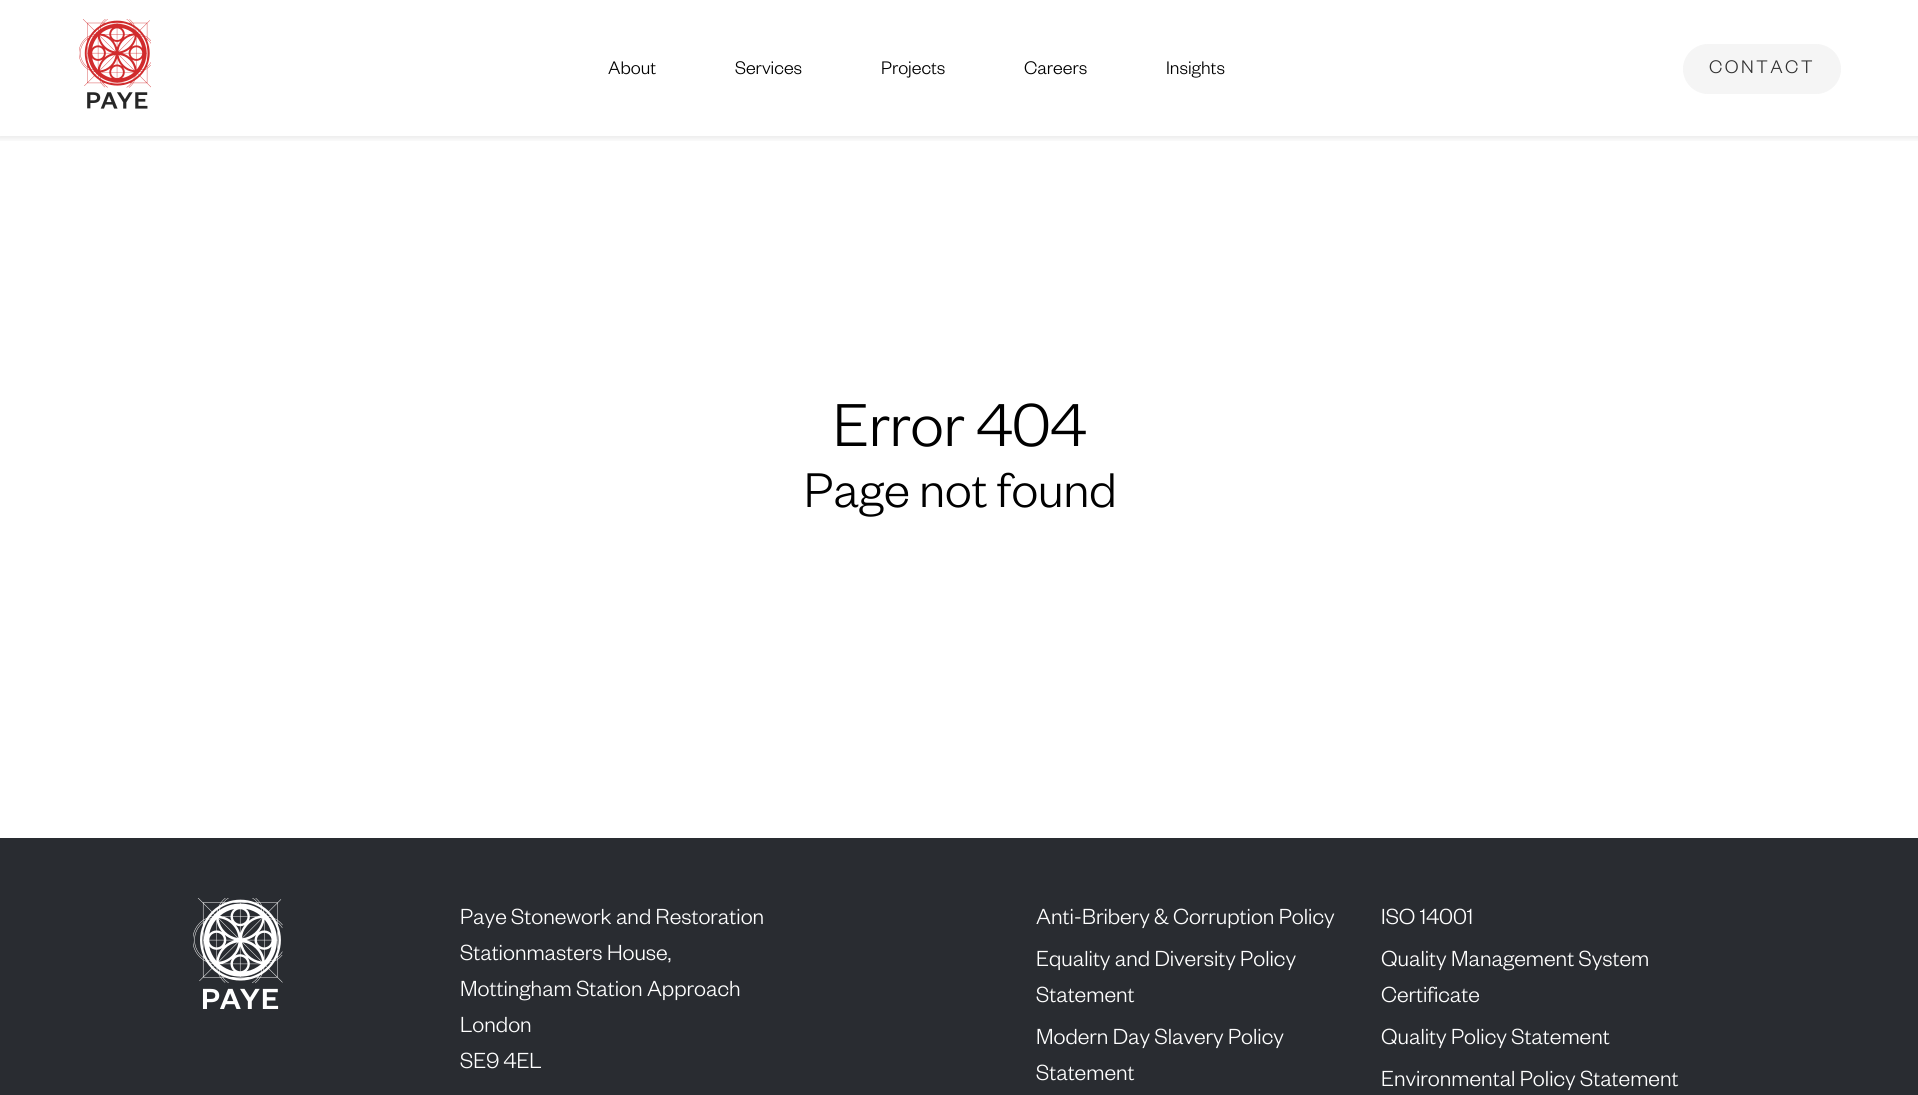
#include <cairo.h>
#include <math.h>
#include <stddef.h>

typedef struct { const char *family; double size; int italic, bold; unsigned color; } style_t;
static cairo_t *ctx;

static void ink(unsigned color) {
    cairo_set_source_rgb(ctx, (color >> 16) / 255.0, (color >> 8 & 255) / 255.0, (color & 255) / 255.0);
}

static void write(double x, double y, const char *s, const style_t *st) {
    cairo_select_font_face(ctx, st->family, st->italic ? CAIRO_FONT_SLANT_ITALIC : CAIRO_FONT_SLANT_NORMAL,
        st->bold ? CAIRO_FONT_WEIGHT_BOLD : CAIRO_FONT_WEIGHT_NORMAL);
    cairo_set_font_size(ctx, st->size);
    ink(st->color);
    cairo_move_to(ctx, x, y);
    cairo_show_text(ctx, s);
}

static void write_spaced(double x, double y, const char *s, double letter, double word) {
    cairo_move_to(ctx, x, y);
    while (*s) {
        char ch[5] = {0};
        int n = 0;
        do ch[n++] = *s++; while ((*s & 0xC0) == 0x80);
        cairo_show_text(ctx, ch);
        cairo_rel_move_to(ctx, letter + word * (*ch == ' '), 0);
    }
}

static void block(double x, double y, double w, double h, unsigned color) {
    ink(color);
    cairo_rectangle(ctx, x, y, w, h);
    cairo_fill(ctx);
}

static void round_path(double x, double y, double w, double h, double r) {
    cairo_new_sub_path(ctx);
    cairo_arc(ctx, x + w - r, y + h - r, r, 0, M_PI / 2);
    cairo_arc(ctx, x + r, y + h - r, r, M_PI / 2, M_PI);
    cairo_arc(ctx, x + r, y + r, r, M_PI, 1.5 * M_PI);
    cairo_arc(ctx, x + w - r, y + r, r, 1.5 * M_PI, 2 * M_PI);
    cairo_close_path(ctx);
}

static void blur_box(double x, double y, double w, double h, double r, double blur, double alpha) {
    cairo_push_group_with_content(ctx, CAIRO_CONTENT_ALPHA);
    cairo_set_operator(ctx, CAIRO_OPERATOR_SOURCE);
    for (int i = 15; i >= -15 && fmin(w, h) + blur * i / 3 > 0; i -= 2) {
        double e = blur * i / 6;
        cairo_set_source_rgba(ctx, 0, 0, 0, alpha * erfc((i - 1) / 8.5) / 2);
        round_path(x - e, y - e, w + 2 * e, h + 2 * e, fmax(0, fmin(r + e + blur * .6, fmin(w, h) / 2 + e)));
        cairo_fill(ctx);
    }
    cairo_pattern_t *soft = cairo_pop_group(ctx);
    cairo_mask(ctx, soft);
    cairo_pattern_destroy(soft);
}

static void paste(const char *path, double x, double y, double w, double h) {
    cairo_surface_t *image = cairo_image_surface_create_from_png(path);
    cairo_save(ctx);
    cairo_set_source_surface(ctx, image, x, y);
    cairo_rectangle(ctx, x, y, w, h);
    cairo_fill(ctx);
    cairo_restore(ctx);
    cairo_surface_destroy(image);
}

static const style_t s1 = {"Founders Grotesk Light", 20, 0, 0, 0x000000};
static const style_t s2 = {"Founders Grotesk Light", 66.5, 0, 0, 0x000000};
static const style_t s3 = {"Founders Grotesk Light", 53.5, 0, 0, 0x000000};
static const style_t s4 = {"Founders Grotesk Light", 24, 0, 0, 0xffffff};

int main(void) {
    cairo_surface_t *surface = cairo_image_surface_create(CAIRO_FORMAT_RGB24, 1918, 1095);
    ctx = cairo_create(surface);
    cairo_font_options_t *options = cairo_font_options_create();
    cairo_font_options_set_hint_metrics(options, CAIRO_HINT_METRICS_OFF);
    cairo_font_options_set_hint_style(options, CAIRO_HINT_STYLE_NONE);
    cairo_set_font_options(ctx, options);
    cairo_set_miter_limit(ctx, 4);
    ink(0xffffff);
    cairo_paint(ctx);
    cairo_save(ctx);
    cairo_rectangle(ctx, 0, 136, 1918, 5);
    cairo_clip(ctx);
    ink(0x000000);
    blur_box(-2, -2, 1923, 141, 0, 3, 0.08);
    cairo_restore(ctx);
    paste("pic1.png", 79, 19, 72, 90);
    write(608, 74, "About", &s1);
    write(735, 74, "Services", &s1);
    write(881, 74, "Projects", &s1);
    write(1024, 74, "Careers", &s1);
    write(1166, 74, "Insights", &s1);
    ink(0xf5f5f5);
    round_path(1683.5, 44.5, 157, 49, 24.5);
    cairo_fill_preserve(ctx);
    cairo_set_line_width(ctx, 1);
    cairo_stroke(ctx);
    ink(0x313131);
    write_spaced(1709, 73, "CONTACT", 2.5, 0);
    write(833, 446, "Error 404", &s2);
    write(804, 507, "Page not found", &s3);
    block(0, 838, 1918, 257, 0x292c31);
    paste("pic2.png", 193, 898, 90, 111);
    write(460, 924, "Paye Stonework and Restoration", &s4);
    write(460, 960, "Stationmasters House,", &s4);
    write(460, 996, "Mottingham Station Approach", &s4);
    write(460, 1032, "London", &s4);
    write(460, 1068, "SE9 4EL", &s4);
    write(1036, 924, "Anti-Bribery & Corruption Policy", &s4);
    write(1036, 966, "Equality and Diversity Policy", &s4);
    write(1036, 1002, "Statement", &s4);
    write(1036, 1044, "Modern Day Slavery Policy", &s4);
    write(1036, 1080, "Statement", &s4);
    write(1381, 924, "ISO 14001", &s4);
    write(1381, 966, "Quality Management System", &s4);
    write(1381, 1002, "Certificate", &s4);
    write(1381, 1044, "Quality Policy Statement", &s4);
    write(1381, 1086, "Environmental Policy Statement", &s4);
    cairo_surface_write_to_png(surface, "screenshot.png");
    cairo_font_options_destroy(options);
    cairo_destroy(ctx);
    cairo_surface_destroy(surface);
    return 0;
}
